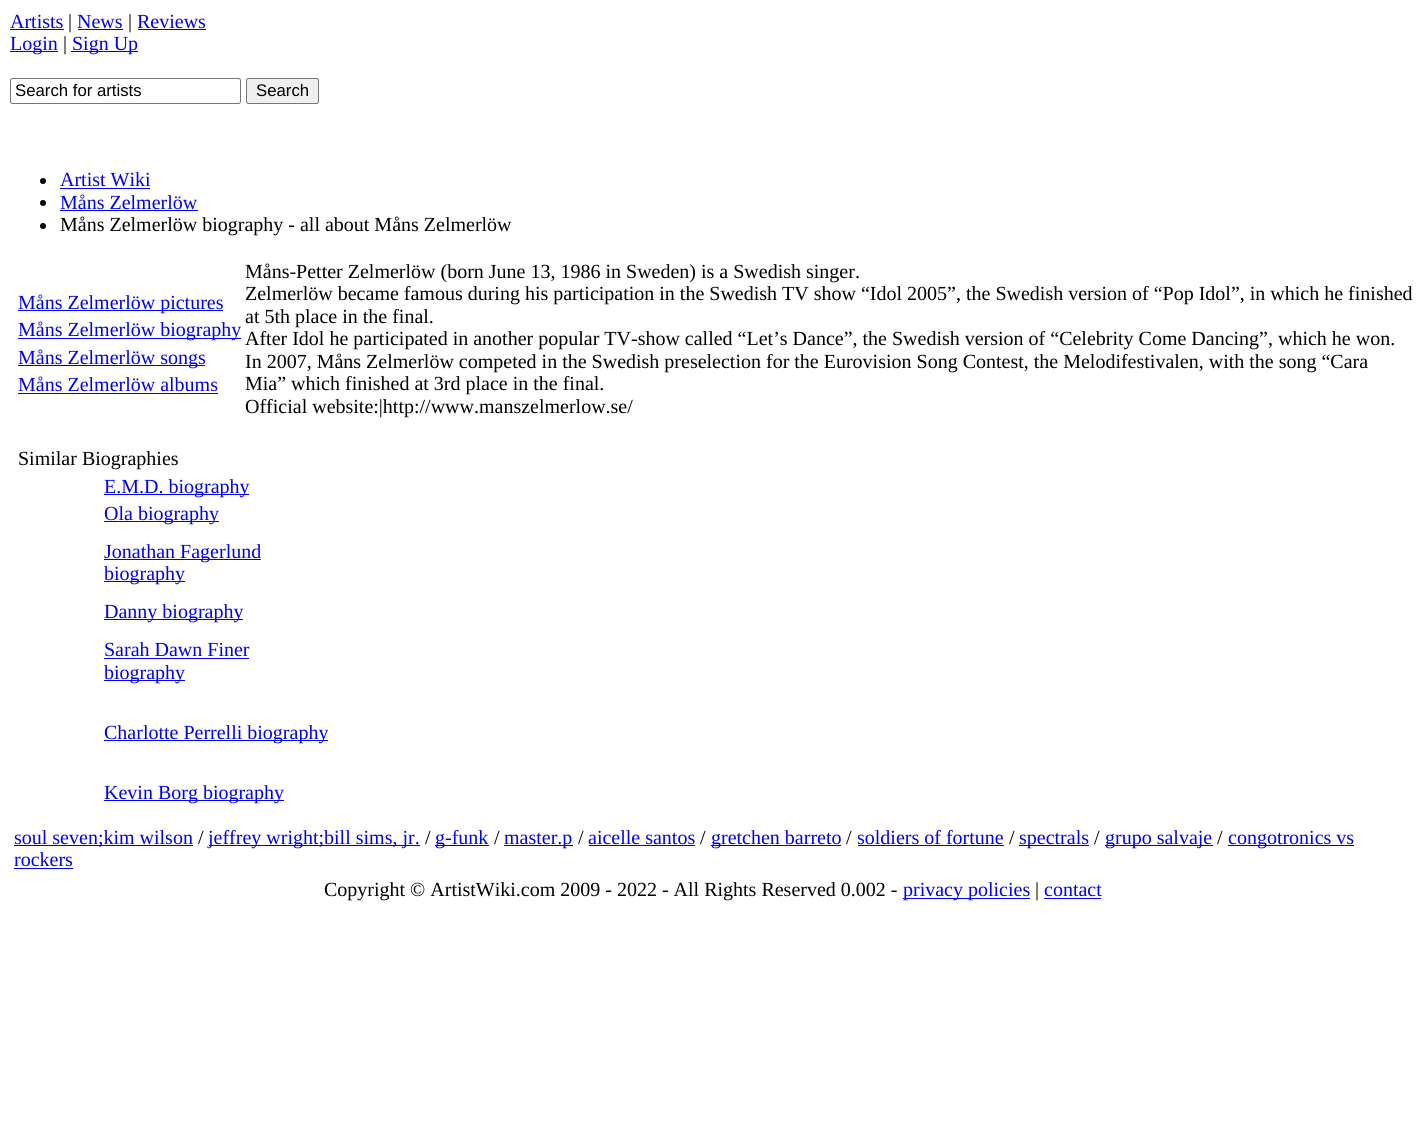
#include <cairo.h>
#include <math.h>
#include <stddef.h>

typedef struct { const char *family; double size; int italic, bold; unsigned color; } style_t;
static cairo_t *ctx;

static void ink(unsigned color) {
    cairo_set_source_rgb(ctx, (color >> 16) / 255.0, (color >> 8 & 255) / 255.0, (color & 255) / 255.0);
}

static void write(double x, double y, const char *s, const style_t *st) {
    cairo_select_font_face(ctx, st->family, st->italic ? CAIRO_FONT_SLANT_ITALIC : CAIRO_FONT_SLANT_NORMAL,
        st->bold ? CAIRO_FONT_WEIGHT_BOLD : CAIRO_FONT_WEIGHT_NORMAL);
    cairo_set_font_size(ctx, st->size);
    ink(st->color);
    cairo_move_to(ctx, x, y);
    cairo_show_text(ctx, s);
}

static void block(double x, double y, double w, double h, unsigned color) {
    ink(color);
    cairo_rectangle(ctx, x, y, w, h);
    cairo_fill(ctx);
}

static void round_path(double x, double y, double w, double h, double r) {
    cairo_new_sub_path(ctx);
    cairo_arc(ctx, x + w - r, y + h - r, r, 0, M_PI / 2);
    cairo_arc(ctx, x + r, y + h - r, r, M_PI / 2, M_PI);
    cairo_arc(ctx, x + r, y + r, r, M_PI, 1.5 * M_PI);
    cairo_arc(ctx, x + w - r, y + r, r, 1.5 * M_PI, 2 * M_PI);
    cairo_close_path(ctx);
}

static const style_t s1 = {"Liberation Serif", 20, 0, 0, 0x0000ee};
static const style_t s2 = {"Liberation Serif", 20, 0, 0, 0x000000};
static const style_t s3 = {"Liberation Sans", 16.75, 0, 0, 0x000000};

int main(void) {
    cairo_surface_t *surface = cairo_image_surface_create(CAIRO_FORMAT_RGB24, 1426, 1129);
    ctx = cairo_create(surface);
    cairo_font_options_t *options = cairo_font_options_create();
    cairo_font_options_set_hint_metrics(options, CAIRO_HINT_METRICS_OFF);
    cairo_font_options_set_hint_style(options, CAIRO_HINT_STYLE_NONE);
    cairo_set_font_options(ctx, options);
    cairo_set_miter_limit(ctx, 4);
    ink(0xffffff);
    cairo_paint(ctx);
    write(10, 28, "Artists", &s1);
    block(10, 29, 54, 1, 0x0000ee);
    write(68, 28, "|", &s2);
    write(77, 28, "News", &s1);
    block(78, 29, 45, 1, 0x0000ee);
    write(128, 28, "|", &s2);
    write(137, 28, "Reviews", &s1);
    block(138, 29, 68, 1, 0x0000ee);
    block(10, 51, 48, 1, 0x0000ee);
    write(10, 50, "Login", &s1);
    write(63, 50, "|", &s2);
    block(71, 51, 67, 1, 0x0000ee);
    write(72, 50, "Sign Up", &s1);
    round_path(10.5, 78.5, 230, 25, 2);
    ink(0x767676);
    cairo_set_line_width(ctx, 1);
    cairo_stroke(ctx);
    write(15, 96, "Search for artists", &s3);
    ink(0xefefef);
    round_path(246.5, 78.5, 72, 25, 2);
    cairo_fill_preserve(ctx);
    ink(0x767676);
    cairo_stroke(ctx);
    write(256, 96, "Search", &s3);
    cairo_new_path(ctx);
    cairo_arc(ctx, 43, 181, 3, 0, 2 * M_PI);
    cairo_fill(ctx);
    write(60, 186, "Artist Wiki", &s1);
    block(60, 188, 90, 1, 0x0000ee);
    ink(0x000000);
    cairo_new_path(ctx);
    cairo_arc(ctx, 43, 203, 3, 0, 2 * M_PI);
    cairo_fill(ctx);
    write(60, 209, "Måns Zelmerlöw", &s1);
    block(60, 210, 138, 1, 0x0000ee);
    ink(0x000000);
    cairo_new_path(ctx);
    cairo_arc(ctx, 43, 226, 3, 0, 2 * M_PI);
    cairo_fill(ctx);
    write(60, 231, "Måns Zelmerlöw biography - all about Måns Zelmerlöw", &s2);
    write(245, 278, "Måns-Petter Zelmerlöw (born June 13, 1986 in Sweden) is a Swedish singer.", &s2);
    block(18, 310, 205, 1, 0x0000ee);
    write(18, 309, "Måns Zelmerlöw pictures", &s1);
    block(18, 338, 223, 1, 0x0000ee);
    write(18, 336, "Måns Zelmerlöw biography", &s1);
    block(18, 365, 187, 1, 0x0000ee);
    write(18, 364, "Måns Zelmerlöw songs", &s1);
    write(18, 391, "Måns Zelmerlöw albums", &s1);
    block(18, 393, 200, 1, 0x0000ee);
    write(245, 300, "Zelmerlöw became famous during his participation in the Swedish TV show “Idol 2005”, the Swedish version of “Pop Idol”, in which he finished", &s2);
    write(245, 323, "at 5th place in the final.", &s2);
    write(245, 345, "After Idol he participated in another popular TV-show called “Let’s Dance”, the Swedish version of “Celebrity Come Dancing”, which he won.", &s2);
    write(245, 368, "In 2007, Måns Zelmerlöw competed in the Swedish preselection for the Eurovision Song Contest, the Melodifestivalen, with the song “Cara", &s2);
    write(245, 390, "Mia” which finished at 3rd place in the final.", &s2);
    write(245, 413, "Official website:|http://www.manszelmerlow.se/", &s2);
    write(18, 465, "Similar Biographies", &s2);
    block(104, 494, 145, 1, 0x0000ee);
    write(104, 493, "E.M.D. biography", &s1);
    block(104, 521, 115, 1, 0x0000ee);
    write(104, 520, "Ola biography", &s1);
    block(104, 559, 157, 1, 0x0000ee);
    write(104, 558, "Jonathan Fagerlund", &s1);
    block(104, 581, 81, 1, 0x0000ee);
    write(104, 580, "biography", &s1);
    block(104, 619, 139, 1, 0x0000ee);
    write(104, 618, "Danny biography", &s1);
    write(104, 656, "Sarah Dawn Finer", &s1);
    block(104, 658, 145, 1, 0x0000ee);
    block(104, 680, 81, 1, 0x0000ee);
    write(104, 679, "biography", &s1);
    block(104, 740, 224, 1, 0x0000ee);
    write(104, 739, "Charlotte Perrelli biography", &s1);
    block(104, 800, 180, 1, 0x0000ee);
    write(104, 799, "Kevin Borg biography", &s1);
    block(14, 845, 179, 1, 0x0000ee);
    write(14, 844, "soul seven;kim wilson", &s1);
    write(198, 844, "/", &s2);
    block(209, 845, 211, 1, 0x0000ee);
    write(208, 844, "jeffrey wright;bill sims, jr.", &s1);
    write(425, 844, "/", &s2);
    block(435, 845, 54, 1, 0x0000ee);
    write(435, 844, "g-funk", &s1);
    write(494, 844, "/", &s2);
    block(504, 845, 69, 1, 0x0000ee);
    write(504, 844, "master.p", &s1);
    write(578, 844, "/", &s2);
    write(588, 844, "aicelle santos", &s1);
    block(589, 845, 106, 1, 0x0000ee);
    write(700, 844, "/", &s2);
    block(711, 845, 130, 1, 0x0000ee);
    write(711, 844, "gretchen barreto", &s1);
    write(846, 844, "/", &s2);
    write(857, 844, "soldiers of fortune", &s1);
    block(858, 845, 146, 1, 0x0000ee);
    write(1009, 844, "/", &s2);
    block(1019, 845, 70, 1, 0x0000ee);
    write(1019, 844, "spectrals", &s1);
    write(1094, 844, "/", &s2);
    block(1105, 845, 108, 1, 0x0000ee);
    write(1105, 844, "grupo salvaje", &s1);
    write(1217, 844, "/", &s2);
    block(1228, 845, 126, 1, 0x0000ee);
    write(1228, 844, "congotronics vs", &s1);
    write(14, 866, "rockers", &s1);
    block(14, 868, 59, 1, 0x0000ee);
    write(324, 896, "Copyright © ArtistWiki.com 2009 - 2022 - All Rights Reserved 0.002 -", &s2);
    block(903, 898, 127, 1, 0x0000ee);
    write(903, 896, "privacy policies", &s1);
    write(1035, 896, "|", &s2);
    write(1044, 896, "contact", &s1);
    block(1044, 898, 57, 1, 0x0000ee);
    cairo_surface_write_to_png(surface, "screenshot.png");
    cairo_font_options_destroy(options);
    cairo_destroy(ctx);
    cairo_surface_destroy(surface);
    return 0;
}
